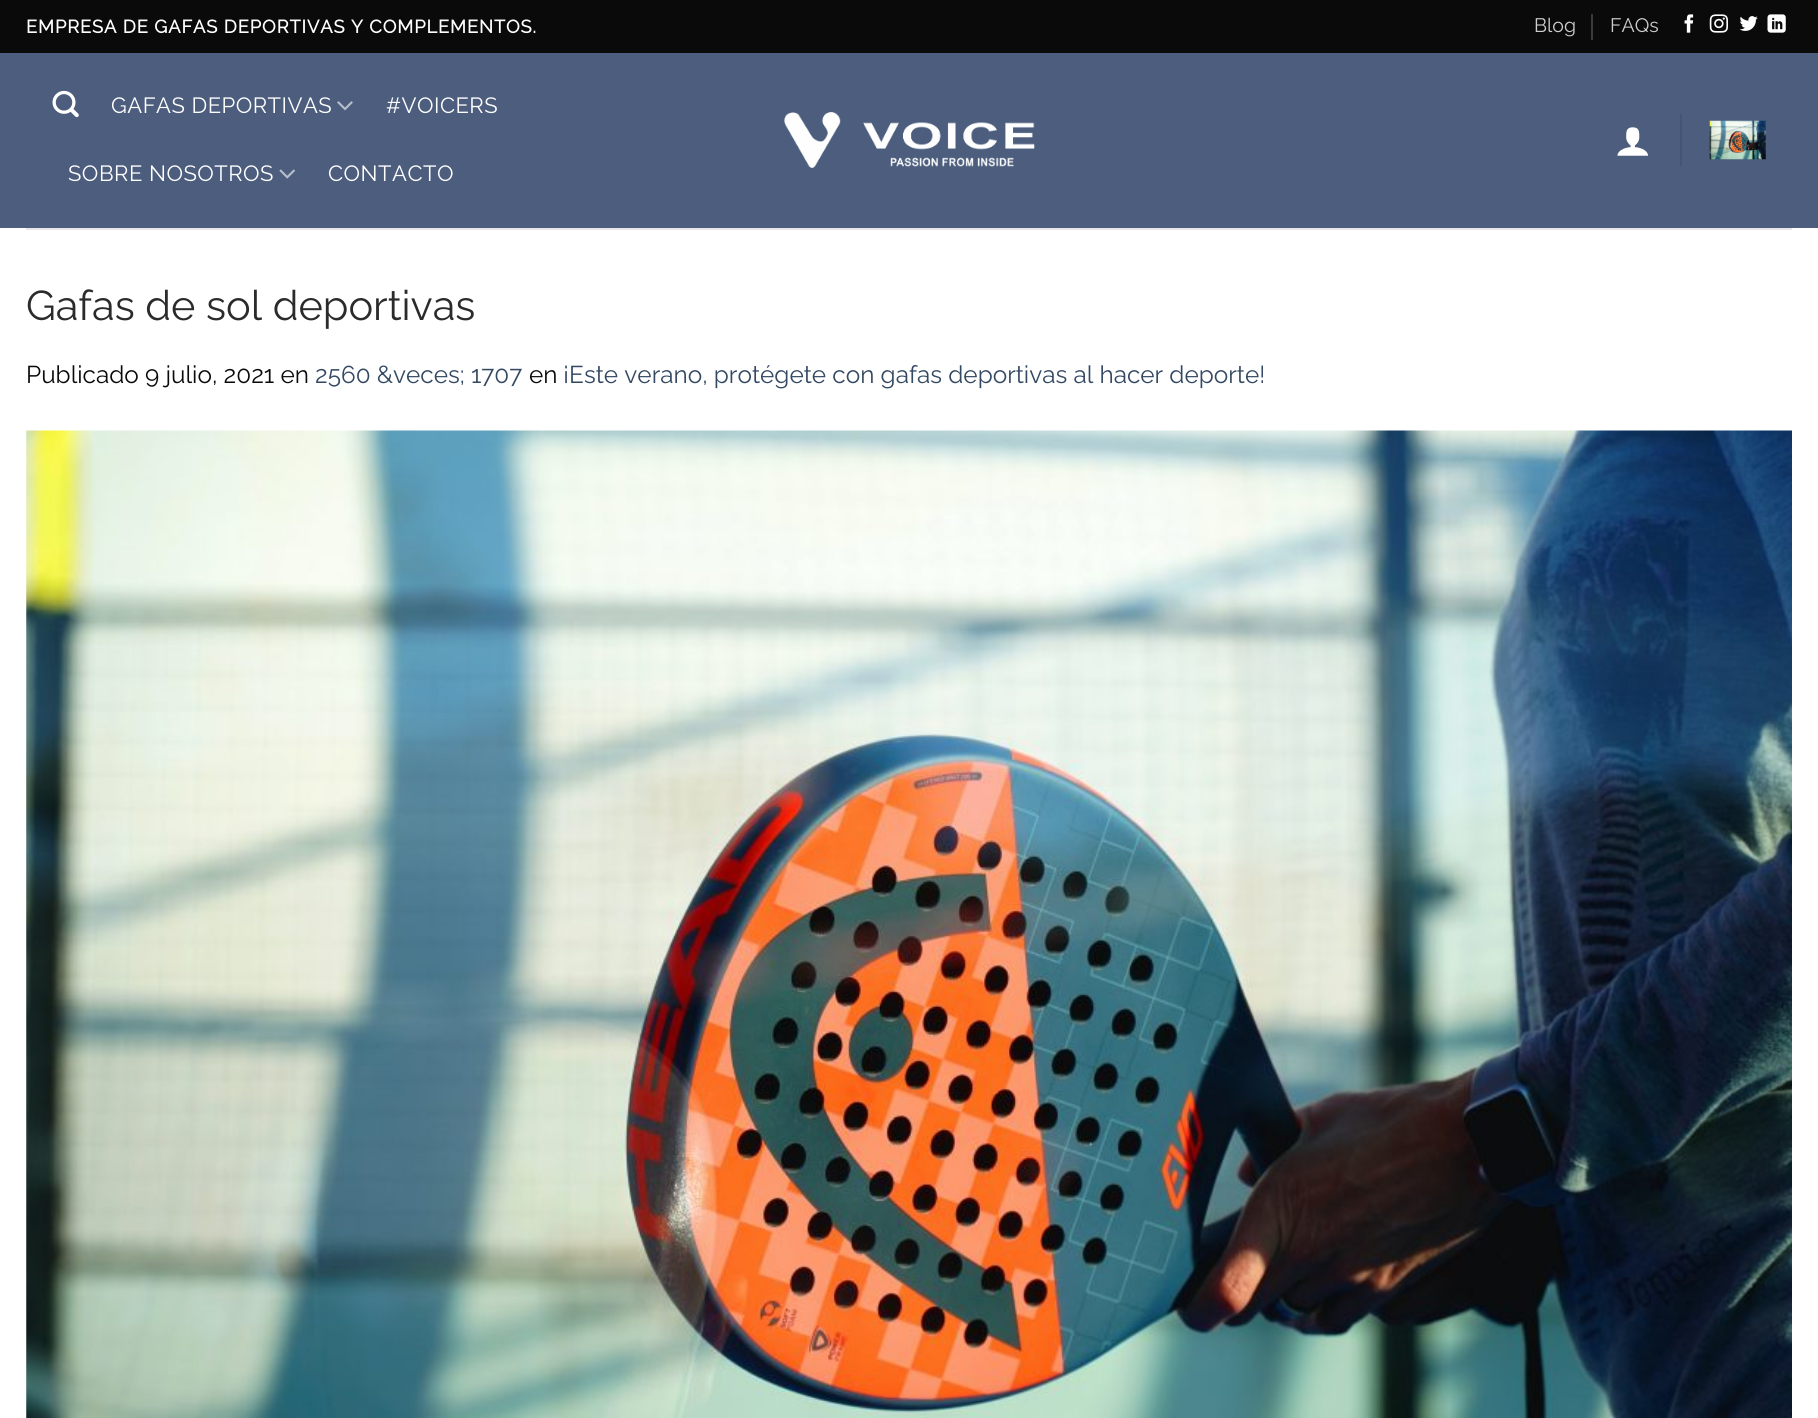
#include <cairo.h>
#include <math.h>
#include <stddef.h>

typedef struct { const char *family; double size; int italic, bold; unsigned color; } style_t;
static cairo_t *ctx;

static void ink(unsigned color) {
    cairo_set_source_rgb(ctx, (color >> 16) / 255.0, (color >> 8 & 255) / 255.0, (color & 255) / 255.0);
}

static void write(double x, double y, const char *s, const style_t *st) {
    cairo_select_font_face(ctx, st->family, st->italic ? CAIRO_FONT_SLANT_ITALIC : CAIRO_FONT_SLANT_NORMAL,
        st->bold ? CAIRO_FONT_WEIGHT_BOLD : CAIRO_FONT_WEIGHT_NORMAL);
    cairo_set_font_size(ctx, st->size);
    ink(st->color);
    cairo_move_to(ctx, x, y);
    cairo_show_text(ctx, s);
}

static void write_spaced(double x, double y, const char *s, double letter, double word) {
    cairo_move_to(ctx, x, y);
    while (*s) {
        char ch[5] = {0};
        int n = 0;
        do ch[n++] = *s++; while ((*s & 0xC0) == 0x80);
        cairo_show_text(ctx, ch);
        cairo_rel_move_to(ctx, letter + word * (*ch == ' '), 0);
    }
}

static void block(double x, double y, double w, double h, unsigned color) {
    ink(color);
    cairo_rectangle(ctx, x, y, w, h);
    cairo_fill(ctx);
}

static void paste(const char *path, double x, double y, double w, double h) {
    cairo_surface_t *image = cairo_image_surface_create_from_png(path);
    cairo_save(ctx);
    cairo_set_source_surface(ctx, image, x, y);
    cairo_rectangle(ctx, x, y, w, h);
    cairo_fill(ctx);
    cairo_restore(ctx);
    cairo_surface_destroy(image);
}

static const style_t s1 = {"Raleway Thin", 19.5, 0, 0, 0xcecece};
static const style_t s2 = {"Raleway Thin", 41.5, 0, 0, 0x2b2b2b};
static const style_t s3 = {"Raleway Thin", 24.35, 0, 0, 0x0a0a0a};
static const style_t s4 = {"Raleway Thin", 24.35, 0, 0, 0x334862};

int main(void) {
    cairo_surface_t *surface = cairo_image_surface_create(CAIRO_FORMAT_RGB24, 1818, 1418);
    ctx = cairo_create(surface);
    cairo_font_options_t *options = cairo_font_options_create();
    cairo_font_options_set_hint_metrics(options, CAIRO_HINT_METRICS_OFF);
    cairo_font_options_set_hint_style(options, CAIRO_HINT_STYLE_NONE);
    cairo_set_font_options(ctx, options);
    cairo_set_miter_limit(ctx, 4);
    ink(0xffffff);
    cairo_paint(ctx);
    block(0, 0, 1818, 53, 0x0a0a0a);
    cairo_select_font_face(ctx, "Raleway", CAIRO_FONT_SLANT_NORMAL, CAIRO_FONT_WEIGHT_BOLD);
    cairo_set_font_size(ctx, 18.25);
    ink(0xffffff);
    write_spaced(26, 33, "EMPRESA DE GAFAS DEPORTIVAS Y COMPLEMENTOS.", 0.9, 0);
    write(1534, 32, "Blog", &s1);
    block(1591, 14, 2, 26, 0x3b3b3b);
    write(1610, 32, "FAQs", &s1);
    paste("pic1.png", 1684, 14, 10, 19);
    paste("pic2.png", 1709, 14, 19, 19);
    paste("pic3.png", 1739, 16, 19, 15);
    paste("pic4.png", 1767, 14, 19, 19);
    block(0, 53, 1818, 175, 0x4c5d7d);
    paste("pic5.png", 52, 90, 27, 28);
    cairo_set_font_size(ctx, 22);
    ink(0xffffff);
    write_spaced(111, 113, "GAFAS DEPORTIVAS", 0.5, 0);
    paste("pic6.png", 337, 101, 16, 10);
    write_spaced(386, 113, "#VOICERS", 0.5, 0);
    write_spaced(68, 181, "SOBRE NOSOTROS", 0.5, 0);
    paste("pic7.png", 279, 169, 16, 10);
    write_spaced(328, 181, "CONTACTO", 0.5, 0);
    paste("pic8.png", 784, 112, 251, 56);
    paste("pic9.png", 1617, 127, 31, 29);
    block(1680, 114, 2, 52, 0x445471);
    paste("pic10.png", 1709, 120, 57, 40);
    block(26, 228, 1766, 2, 0xe7e7e7);
    write(26, 320, "Gafas de sol deportivas", &s2);
    write(26, 383, "Publicado 9 julio, 2021 en", &s3);
    write(315, 383, "2560 &veces; 1707", &s4);
    write(529, 383, "en", &s3);
    write(563, 383, "¡Este verano, protégete con gafas deportivas al hacer deporte!", &s4);
    paste("pic11.png", 26, 430, 1766, 988);
    cairo_surface_write_to_png(surface, "screenshot.png");
    cairo_font_options_destroy(options);
    cairo_destroy(ctx);
    cairo_surface_destroy(surface);
    return 0;
}
